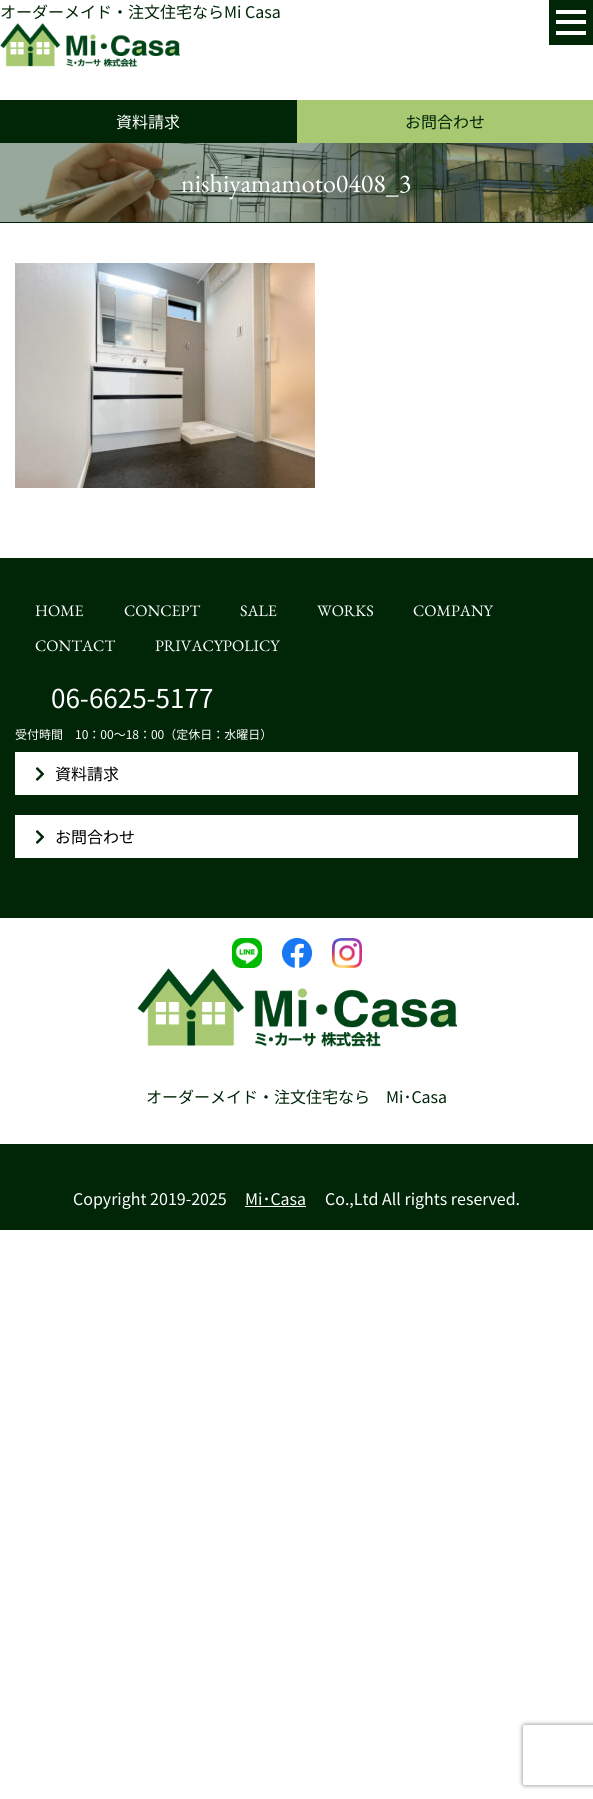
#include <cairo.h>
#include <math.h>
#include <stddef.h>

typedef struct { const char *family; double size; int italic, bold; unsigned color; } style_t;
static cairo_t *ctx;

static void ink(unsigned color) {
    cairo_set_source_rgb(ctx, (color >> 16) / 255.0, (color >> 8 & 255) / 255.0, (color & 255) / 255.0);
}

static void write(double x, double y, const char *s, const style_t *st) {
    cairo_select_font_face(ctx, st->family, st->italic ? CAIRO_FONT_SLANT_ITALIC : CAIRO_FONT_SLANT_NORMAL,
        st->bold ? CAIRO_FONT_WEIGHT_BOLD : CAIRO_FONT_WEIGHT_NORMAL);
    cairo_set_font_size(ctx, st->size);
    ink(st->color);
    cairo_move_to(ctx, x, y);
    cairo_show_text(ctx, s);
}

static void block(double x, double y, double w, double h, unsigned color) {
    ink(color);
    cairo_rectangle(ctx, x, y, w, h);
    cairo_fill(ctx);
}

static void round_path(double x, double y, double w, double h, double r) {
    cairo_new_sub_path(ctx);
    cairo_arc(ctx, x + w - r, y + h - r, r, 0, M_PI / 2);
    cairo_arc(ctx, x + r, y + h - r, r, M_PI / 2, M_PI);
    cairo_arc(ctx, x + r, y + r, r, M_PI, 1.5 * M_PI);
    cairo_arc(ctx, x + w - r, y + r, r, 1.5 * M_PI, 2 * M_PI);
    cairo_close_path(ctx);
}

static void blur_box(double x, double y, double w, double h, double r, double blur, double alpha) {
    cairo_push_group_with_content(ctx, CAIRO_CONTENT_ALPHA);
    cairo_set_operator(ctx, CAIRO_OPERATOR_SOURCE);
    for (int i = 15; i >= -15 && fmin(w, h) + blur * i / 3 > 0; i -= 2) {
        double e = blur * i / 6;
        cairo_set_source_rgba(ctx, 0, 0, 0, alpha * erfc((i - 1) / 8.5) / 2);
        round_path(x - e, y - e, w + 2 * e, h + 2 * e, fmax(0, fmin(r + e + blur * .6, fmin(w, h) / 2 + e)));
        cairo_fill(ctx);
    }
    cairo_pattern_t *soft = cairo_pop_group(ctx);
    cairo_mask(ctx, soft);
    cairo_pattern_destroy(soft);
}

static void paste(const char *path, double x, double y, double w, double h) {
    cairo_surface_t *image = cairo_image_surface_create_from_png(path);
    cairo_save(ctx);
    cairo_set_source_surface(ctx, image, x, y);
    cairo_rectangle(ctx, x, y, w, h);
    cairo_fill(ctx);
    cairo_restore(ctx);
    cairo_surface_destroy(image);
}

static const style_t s1 = {"Noto Sans JP Thin", 16, 0, 0, 0x002507};
static const style_t s2 = {"Noto Sans JP Thin", 16, 0, 0, 0xffffff};
static const style_t s3 = {"EB Garamond", 26, 0, 0, 0xffffff};
static const style_t s4 = {"EB Garamond", 16, 0, 0, 0xffffff};
static const style_t s5 = {"Noto Sans JP Thin", 26, 0, 0, 0xffffff};
static const style_t s6 = {"Noto Sans JP Thin", 12, 0, 0, 0xffffff};
static const style_t s7 = {"Noto Sans JP Thin", 16, 0, 0, 0x000000};

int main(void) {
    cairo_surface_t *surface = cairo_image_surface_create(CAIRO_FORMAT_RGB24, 593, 1799);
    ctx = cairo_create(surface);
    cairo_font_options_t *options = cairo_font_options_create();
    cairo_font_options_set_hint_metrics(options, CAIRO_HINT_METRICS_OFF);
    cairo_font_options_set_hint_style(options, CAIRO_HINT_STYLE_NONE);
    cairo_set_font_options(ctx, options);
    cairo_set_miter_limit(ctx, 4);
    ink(0xffffff);
    cairo_paint(ctx);
    block(0, 143, 18, 79, 0x99a89c);
    write(0, 18, "オーダーメイド・注文住宅ならMi Casa", &s1);
    paste("pic1.png", 0, 23, 180, 44);
    block(0, 100, 297, 43, 0x002507);
    write(116, 128, "資料請求", &s2);
    block(297, 100, 296, 43, 0xa8c972);
    write(405, 128, "お問合わせ", &s1);
    block(549, 0, 44, 45, 0x002507);
    block(556, 10, 30, 4, 0xffffff);
    block(556, 20, 30, 4, 0xffffff);
    block(556, 31, 30, 4, 0xffffff);
    paste("pic2.png", 18, 143, 575, 79);
    block(0, 222, 593, 1, 0x002507);
    write(181, 192, "nishiyamamoto0408_3", &s3);
    paste("pic3.png", 15, 263, 300, 225);
    block(0, 558, 593, 360, 0x002507);
    write(35, 616, "HOME", &s4);
    write(124, 616, "CONCEPT", &s4);
    write(240, 616, "SALE", &s4);
    write(317, 616, "WORKS", &s4);
    write(413, 616, "COMPANY", &s4);
    write(35, 651, "CONTACT", &s4);
    write(155, 651, "PRIVACYPOLICY", &s4);
    write(51, 708, "06-6625-5177", &s5);
    write(15, 739, "受付時間　10：00～18：00（定休日：水曜日）", &s6);
    block(15, 752, 563, 43, 0xffffff);
    paste("pic4.png", 35, 767, 10, 14);
    write(55, 780, "資料請求", &s7);
    block(15, 815, 563, 43, 0xffffff);
    paste("pic4.png", 35, 830, 10, 14);
    write(55, 843, "お問合わせ", &s7);
    paste("pic5.png", 232, 938, 30, 30);
    paste("pic6.png", 282, 938, 30, 30);
    paste("pic7.png", 332, 938, 30, 30);
    paste("pic8.png", 137, 968, 320, 79);
    write(146, 1103, "オーダーメイド・注文住宅なら　Mi･Casa", &s1);
    block(0, 1144, 593, 86, 0x002507);
    write(73, 1205, "Copyright 2019-2025", &s2);
    write(245, 1205, "Mi･Casa", &s2);
    block(245, 1206, 61, 1, 0xffffff);
    write(325, 1205, "Co.,Ltd All rights reserved.", &s2);
    cairo_save(ctx);
    cairo_set_fill_rule(ctx, CAIRO_FILL_RULE_EVEN_ODD);
    cairo_new_path(ctx);
    cairo_move_to(ctx, 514, 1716);
    cairo_line_to(ctx, 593, 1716);
    cairo_line_to(ctx, 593, 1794);
    cairo_line_to(ctx, 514, 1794);
    cairo_close_path(ctx);
    cairo_move_to(ctx, 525, 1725);
    cairo_line_to(ctx, 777, 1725);
    cairo_curve_to(ctx, 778, 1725, 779, 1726, 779, 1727);
    cairo_line_to(ctx, 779, 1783);
    cairo_curve_to(ctx, 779, 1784, 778, 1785, 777, 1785);
    cairo_line_to(ctx, 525, 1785);
    cairo_curve_to(ctx, 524, 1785, 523, 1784, 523, 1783);
    cairo_line_to(ctx, 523, 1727);
    cairo_curve_to(ctx, 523, 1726, 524, 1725, 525, 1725);
    cairo_close_path(ctx);
    cairo_clip(ctx);
    ink(0x808080);
    blur_box(523, 1725, 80, 60, 2, 2.5, 1);
    cairo_restore(ctx);
    cairo_surface_write_to_png(surface, "screenshot.png");
    cairo_font_options_destroy(options);
    cairo_destroy(ctx);
    cairo_surface_destroy(surface);
    return 0;
}
